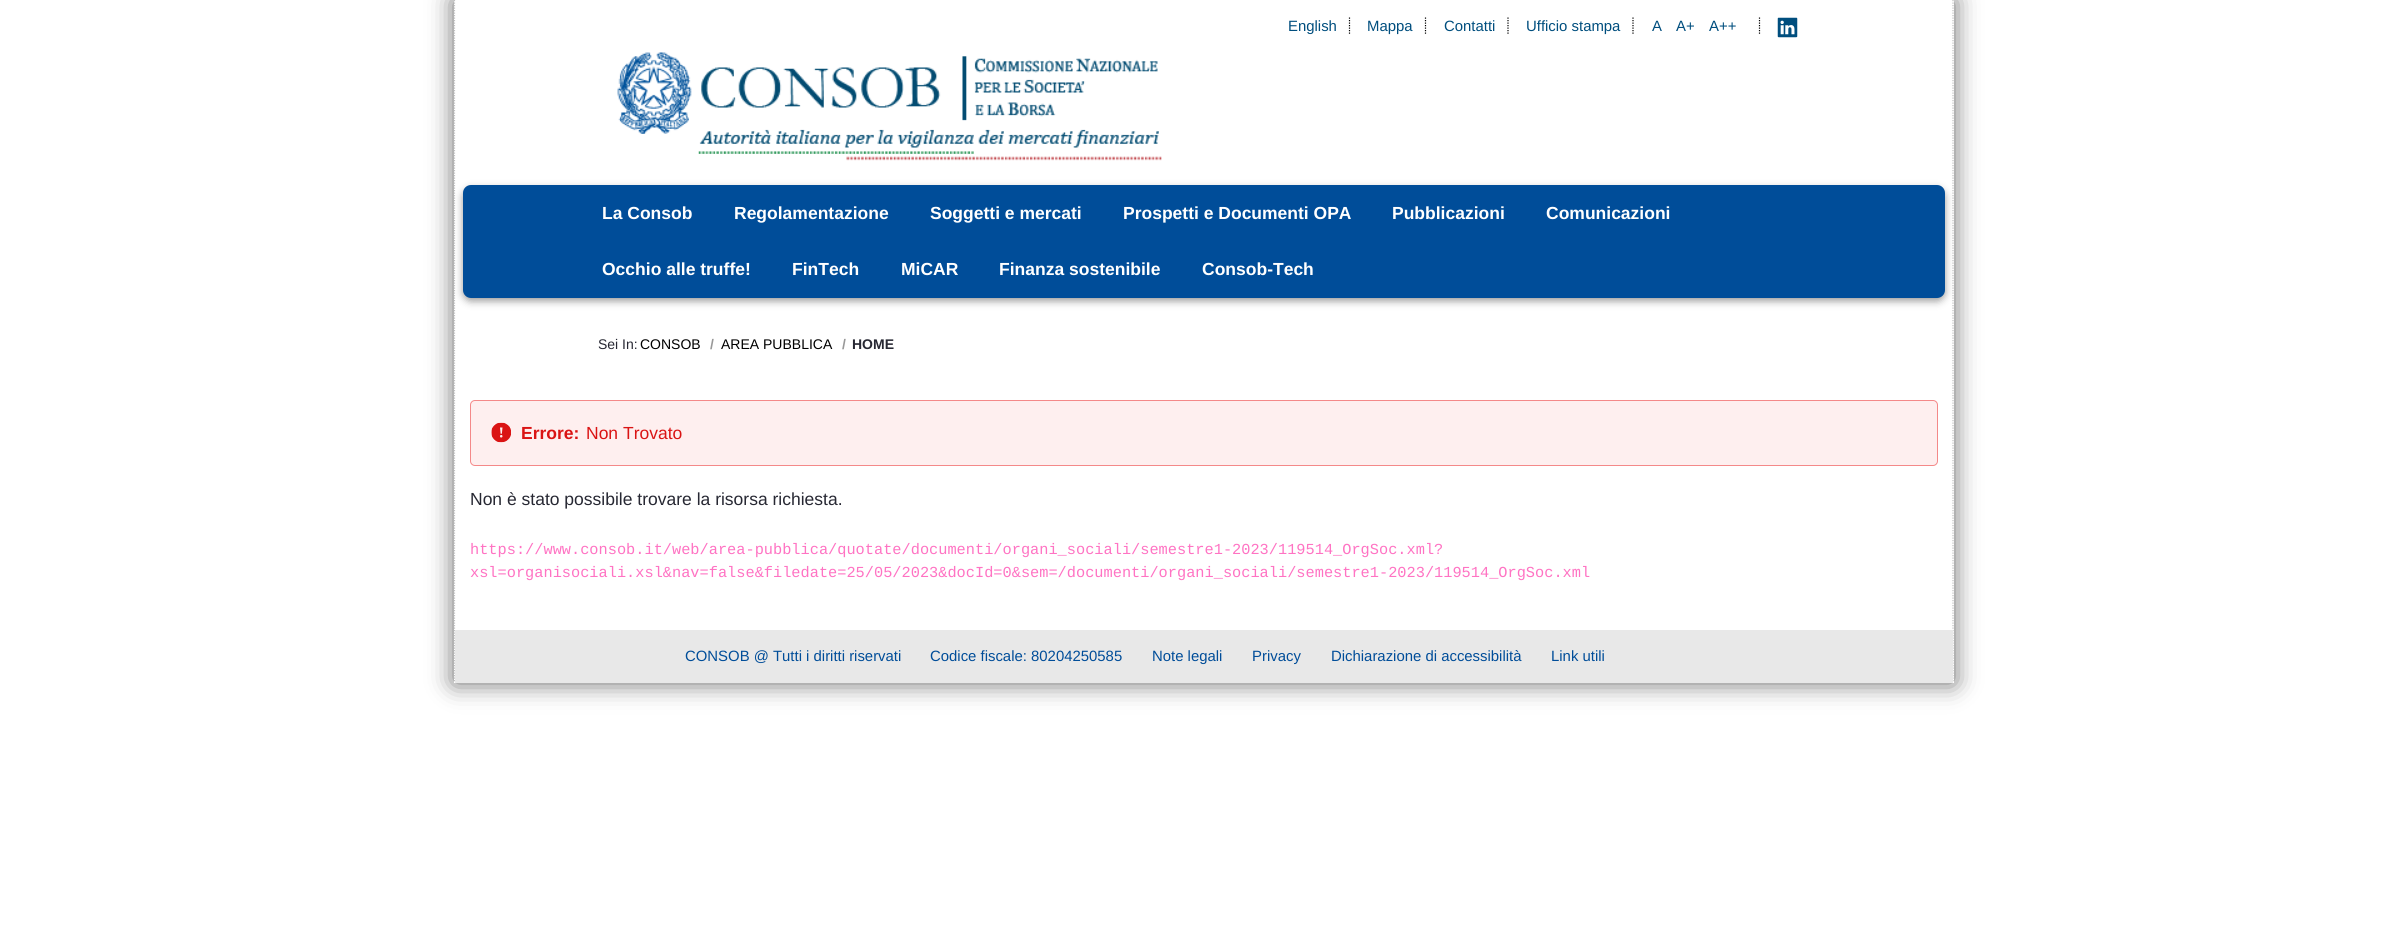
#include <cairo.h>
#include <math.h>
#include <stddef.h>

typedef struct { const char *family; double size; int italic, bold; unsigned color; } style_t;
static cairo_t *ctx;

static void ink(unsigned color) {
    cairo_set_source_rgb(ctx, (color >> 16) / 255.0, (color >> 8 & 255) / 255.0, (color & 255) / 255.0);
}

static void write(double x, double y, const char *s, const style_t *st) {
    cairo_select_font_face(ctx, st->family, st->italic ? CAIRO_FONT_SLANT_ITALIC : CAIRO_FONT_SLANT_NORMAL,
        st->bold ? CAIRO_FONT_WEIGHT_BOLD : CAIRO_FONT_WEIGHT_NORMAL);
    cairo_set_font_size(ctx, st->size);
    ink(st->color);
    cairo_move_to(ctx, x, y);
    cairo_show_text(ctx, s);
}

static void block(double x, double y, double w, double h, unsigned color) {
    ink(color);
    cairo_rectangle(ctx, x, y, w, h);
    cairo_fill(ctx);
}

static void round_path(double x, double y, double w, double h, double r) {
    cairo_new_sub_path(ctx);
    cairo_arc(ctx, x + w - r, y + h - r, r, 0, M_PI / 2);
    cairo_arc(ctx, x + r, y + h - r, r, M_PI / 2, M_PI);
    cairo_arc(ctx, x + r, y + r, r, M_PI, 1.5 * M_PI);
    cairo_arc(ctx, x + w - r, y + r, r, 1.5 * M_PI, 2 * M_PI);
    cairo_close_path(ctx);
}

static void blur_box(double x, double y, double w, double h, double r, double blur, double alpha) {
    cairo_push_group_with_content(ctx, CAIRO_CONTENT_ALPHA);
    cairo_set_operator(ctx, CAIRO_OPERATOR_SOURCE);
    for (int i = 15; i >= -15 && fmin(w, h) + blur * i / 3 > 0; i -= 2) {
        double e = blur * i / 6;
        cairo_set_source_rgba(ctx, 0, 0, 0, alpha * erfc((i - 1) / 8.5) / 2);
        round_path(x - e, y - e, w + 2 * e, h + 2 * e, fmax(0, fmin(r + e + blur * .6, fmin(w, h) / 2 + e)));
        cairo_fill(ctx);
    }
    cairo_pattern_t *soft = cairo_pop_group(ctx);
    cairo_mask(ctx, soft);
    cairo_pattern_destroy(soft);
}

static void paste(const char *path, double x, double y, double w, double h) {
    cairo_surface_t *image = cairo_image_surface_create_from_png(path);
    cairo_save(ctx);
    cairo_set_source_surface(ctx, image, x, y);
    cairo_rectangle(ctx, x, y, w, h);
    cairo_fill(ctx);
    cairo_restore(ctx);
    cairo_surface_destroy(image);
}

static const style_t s1 = {"Liberation Sans", 14.9, 0, 0, 0x004e7e};
static const style_t s2 = {"Liberation Sans", 17.5, 0, 1, 0xffffff};
static const style_t s3 = {"Liberation Sans", 14, 0, 0, 0x272833};
static const style_t s4 = {"Liberation Sans", 14, 0, 0, 0x000000};
static const style_t s5 = {"Liberation Sans", 14, 0, 1, 0x999999};
static const style_t s6 = {"Liberation Sans", 14, 0, 1, 0x272833};
static const style_t s7 = {"Liberation Sans", 17.5, 0, 1, 0xda1414};
static const style_t s8 = {"Liberation Sans", 17.5, 0, 0, 0xda1414};
static const style_t s9 = {"Liberation Sans", 17.5, 0, 0, 0x272833};
static const style_t s10 = {"Liberation Mono", 15.3, 0, 0, 0xff73c3};
static const style_t s11 = {"Liberation Sans", 14.9, 0, 0, 0x004d99};

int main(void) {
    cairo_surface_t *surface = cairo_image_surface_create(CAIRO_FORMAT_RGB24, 2407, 933);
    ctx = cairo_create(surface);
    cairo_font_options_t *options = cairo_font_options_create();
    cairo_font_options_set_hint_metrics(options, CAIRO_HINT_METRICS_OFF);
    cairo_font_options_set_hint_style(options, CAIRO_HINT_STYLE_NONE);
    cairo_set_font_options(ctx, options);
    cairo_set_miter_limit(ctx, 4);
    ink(0xffffff);
    cairo_paint(ctx);
    cairo_save(ctx);
    cairo_set_fill_rule(ctx, CAIRO_FILL_RULE_EVEN_ODD);
    cairo_new_path(ctx);
    cairo_move_to(ctx, 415, 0);
    cairo_line_to(ctx, 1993, 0);
    cairo_line_to(ctx, 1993, 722);
    cairo_line_to(ctx, 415, 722);
    cairo_close_path(ctx);
    cairo_move_to(ctx, 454, 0);
    cairo_line_to(ctx, 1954, 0);
    cairo_line_to(ctx, 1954, 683);
    cairo_line_to(ctx, 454, 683);
    cairo_close_path(ctx);
    cairo_clip(ctx);
    ink(0x666666);
    blur_box(454, 0, 1500, 683, 0, 12.5, 1);
    cairo_restore(ctx);
    cairo_new_path(ctx);
    cairo_move_to(ctx, 1953, 0);
    cairo_line_to(ctx, 1953, 682.5);
    ink(0xc0c0c0);
    cairo_set_line_width(ctx, 1.2);
    cairo_set_dash(ctx, (double[]){1.25, 1.25}, 2, 0);
    cairo_stroke(ctx);
    cairo_new_path(ctx);
    cairo_move_to(ctx, 454.5, 0);
    cairo_line_to(ctx, 454.5, 682.5);
    cairo_stroke(ctx);
    cairo_new_path(ctx);
    cairo_move_to(ctx, 1349.5, 17.5);
    cairo_line_to(ctx, 1349.5, 34);
    ink(0x000000);
    cairo_stroke(ctx);
    write(1288, 31, "English", &s1);
    cairo_new_path(ctx);
    cairo_move_to(ctx, 1425.5, 17.5);
    cairo_line_to(ctx, 1425.5, 34);
    ink(0x000000);
    cairo_stroke(ctx);
    write(1367, 31, "Mappa", &s1);
    cairo_new_path(ctx);
    cairo_move_to(ctx, 1508, 17.5);
    cairo_line_to(ctx, 1508, 34);
    ink(0x000000);
    cairo_stroke(ctx);
    write(1444, 31, "Contatti", &s1);
    cairo_new_path(ctx);
    cairo_move_to(ctx, 1633, 17.5);
    cairo_line_to(ctx, 1633, 34);
    ink(0x000000);
    cairo_stroke(ctx);
    write(1526, 31, "Ufficio stampa", &s1);
    cairo_new_path(ctx);
    cairo_move_to(ctx, 1759.5, 17.5);
    cairo_line_to(ctx, 1759.5, 34);
    ink(0x000000);
    cairo_stroke(ctx);
    write(1652, 31, "A", &s1);
    write(1676, 31, "A+", &s1);
    write(1709, 31, "A++", &s1);
    paste("pic1.png", 1777, 17, 21, 21);
    paste("pic2.png", 617, 52, 545, 109);
    ink(0x999999);
    blur_box(463, 189, 1482, 112, 8, 4, 1);
    ink(0x004d99);
    round_path(463, 185, 1482, 113, 8);
    cairo_fill(ctx);
    write(602, 219, "La Consob", &s2);
    write(734, 219, "Regolamentazione", &s2);
    write(930, 219, "Soggetti e mercati", &s2);
    write(1123, 219, "Prospetti e Documenti OPA", &s2);
    write(1392, 219, "Pubblicazioni", &s2);
    write(1546, 219, "Comunicazioni", &s2);
    write(602, 275, "Occhio alle truffe!", &s2);
    write(792, 275, "FinTech", &s2);
    write(901, 275, "MiCAR", &s2);
    write(999, 275, "Finanza sostenibile", &s2);
    write(1202, 275, "Consob-Tech", &s2);
    write(598, 349, "Sei In:", &s3);
    write(640, 349, "CONSOB", &s4);
    write(710, 349, "/", &s5);
    write(721, 349, "AREA PUBBLICA", &s4);
    write(842, 349, "/", &s5);
    write(852, 349, "HOME", &s6);
    ink(0xfeefef);
    round_path(470.5, 400.5, 1467, 65, 4.5);
    cairo_fill_preserve(ctx);
    ink(0xf48989);
    cairo_set_line_width(ctx, 1);
    cairo_set_dash(ctx, NULL, 0, 0);
    cairo_stroke(ctx);
    paste("pic3.png", 491, 422, 20, 21);
    write(521, 439, "Errore:", &s7);
    write(586, 439, "Non Trovato", &s8);
    write(470, 505, "Non è stato possibile trovare la risorsa richiesta.", &s9);
    write(470, 554, "https://www.consob.it/web/area-pubblica/quotate/documenti/organi_sociali/semestre1-2023/119514_OrgSoc.xml?", &s10);
    write(470, 577, "xsl=organisociali.xsl&nav=false&filedate=25/05/2023&docId=0&sem=/documenti/organi_sociali/semestre1-2023/119514_OrgSoc.xml", &s10);
    block(455, 630, 1498, 53, 0xe8e8e8);
    write(685, 661, "CONSOB @ Tutti i diritti riservati", &s11);
    write(930, 661, "Codice fiscale: 80204250585", &s11);
    write(1152, 661, "Note legali", &s11);
    write(1252, 661, "Privacy", &s11);
    write(1331, 661, "Dichiarazione di accessibilità", &s11);
    write(1551, 661, "Link utili", &s11);
    cairo_surface_write_to_png(surface, "screenshot.png");
    cairo_font_options_destroy(options);
    cairo_destroy(ctx);
    cairo_surface_destroy(surface);
    return 0;
}
